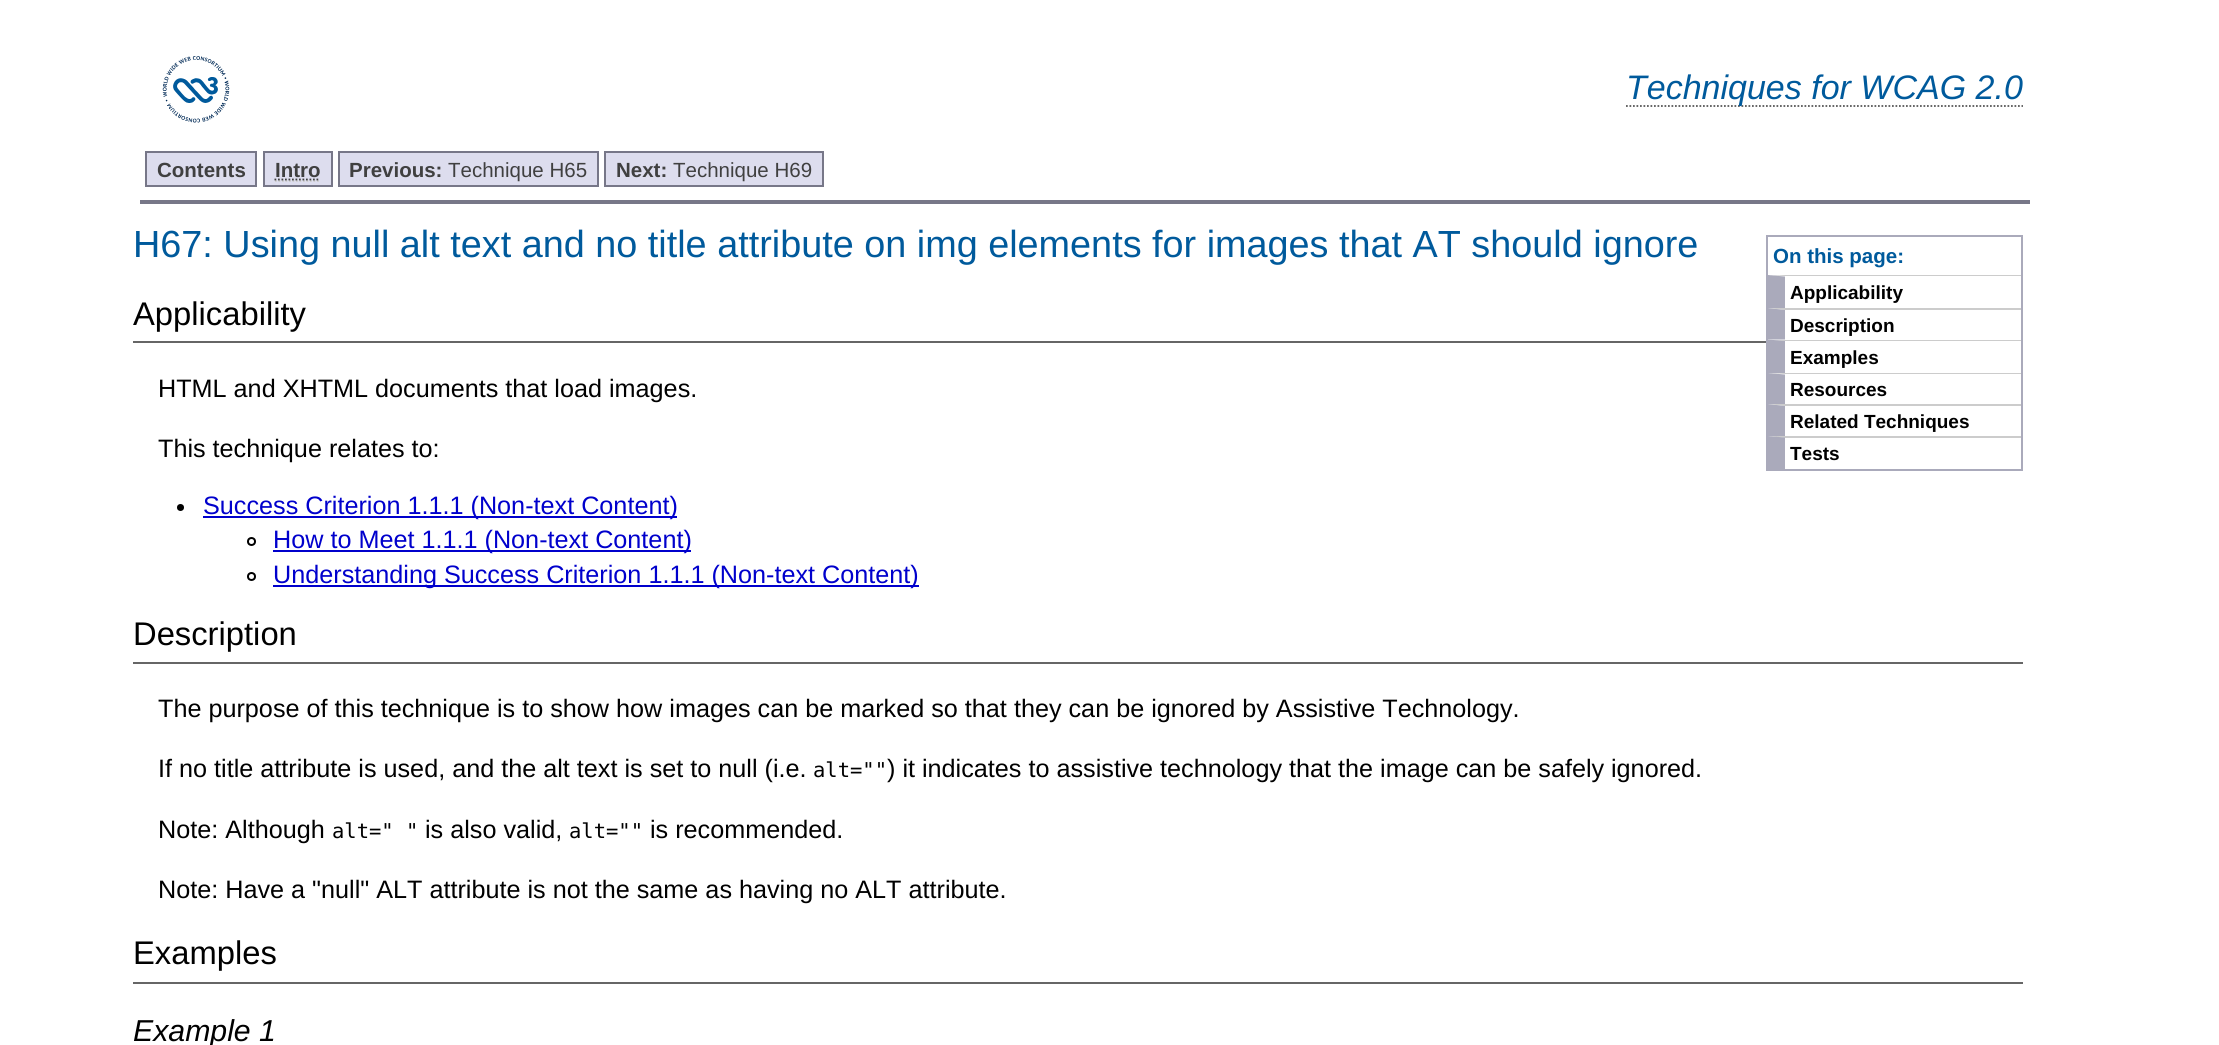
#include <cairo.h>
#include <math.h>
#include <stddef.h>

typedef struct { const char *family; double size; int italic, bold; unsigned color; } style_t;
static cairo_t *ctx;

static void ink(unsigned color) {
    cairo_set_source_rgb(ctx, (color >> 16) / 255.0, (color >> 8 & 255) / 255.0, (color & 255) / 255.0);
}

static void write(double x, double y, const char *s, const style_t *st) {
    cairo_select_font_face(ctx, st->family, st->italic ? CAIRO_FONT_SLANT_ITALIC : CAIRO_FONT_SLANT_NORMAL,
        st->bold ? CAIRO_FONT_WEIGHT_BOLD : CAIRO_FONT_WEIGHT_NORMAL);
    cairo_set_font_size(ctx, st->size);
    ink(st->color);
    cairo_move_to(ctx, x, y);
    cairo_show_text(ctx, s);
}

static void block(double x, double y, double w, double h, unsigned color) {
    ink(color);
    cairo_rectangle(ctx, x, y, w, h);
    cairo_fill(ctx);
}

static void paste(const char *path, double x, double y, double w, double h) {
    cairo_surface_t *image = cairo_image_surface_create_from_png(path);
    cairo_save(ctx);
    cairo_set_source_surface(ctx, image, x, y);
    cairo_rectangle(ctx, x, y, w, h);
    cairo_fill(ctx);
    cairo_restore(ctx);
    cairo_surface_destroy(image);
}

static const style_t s1 = {"Liberation Sans", 34, 1, 0, 0x005a9c};
static const style_t s2 = {"Liberation Sans", 20.5, 0, 1, 0x404040};
static const style_t s3 = {"Liberation Sans", 20.5, 0, 0, 0x404040};
static const style_t s4 = {"Liberation Sans", 37.8, 0, 0, 0x005a9c};
static const style_t s5 = {"Liberation Sans", 20.5, 0, 1, 0x005a9c};
static const style_t s6 = {"Liberation Sans", 19, 0, 1, 0x000000};
static const style_t s7 = {"Liberation Sans", 32.75, 0, 0, 0x000000};
static const style_t s8 = {"Liberation Sans", 25.2, 0, 0, 0x000000};
static const style_t s9 = {"Liberation Sans", 25.2, 0, 0, 0x0000cc};
static const style_t s10 = {"DejaVu Sans Mono", 20.5, 0, 0, 0x000000};
static const style_t s11 = {"Liberation Sans", 30.25, 1, 0, 0x000000};

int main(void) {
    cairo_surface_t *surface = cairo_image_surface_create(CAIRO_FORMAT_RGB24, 2219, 1045);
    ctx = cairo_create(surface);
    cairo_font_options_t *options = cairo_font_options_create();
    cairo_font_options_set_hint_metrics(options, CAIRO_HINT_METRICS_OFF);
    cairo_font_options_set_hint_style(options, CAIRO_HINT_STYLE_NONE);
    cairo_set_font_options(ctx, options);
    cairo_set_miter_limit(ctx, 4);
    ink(0xffffff);
    cairo_paint(ctx);
    paste("pic1.png", 162, 56, 68, 67);
    cairo_new_path(ctx);
    cairo_move_to(ctx, 1626, 106);
    cairo_line_to(ctx, 2023, 106);
    ink(0x585858);
    cairo_set_line_width(ctx, 1.8);
    cairo_set_dash(ctx, (double[]){1.75, 1.75}, 2, 0);
    cairo_stroke(ctx);
    write(1626, 99, "Techniques for WCAG 2.0", &s1);
    block(140, 200, 1890, 4, 0x777788);
    ink(0xddddee);
    cairo_rectangle(ctx, 146, 152, 110, 34);
    cairo_fill_preserve(ctx);
    ink(0x777788);
    cairo_set_line_width(ctx, 2);
    cairo_set_dash(ctx, NULL, 0, 0);
    cairo_stroke(ctx);
    write(157, 177, "Contents", &s2);
    ink(0xddddee);
    cairo_rectangle(ctx, 264, 152, 68, 34);
    cairo_fill_preserve(ctx);
    ink(0x777788);
    cairo_stroke(ctx);
    write(275, 177, "Intro", &s2);
    cairo_new_path(ctx);
    cairo_move_to(ctx, 275, 181);
    cairo_line_to(ctx, 320, 181);
    ink(0xcccccc);
    cairo_set_line_width(ctx, 1.8);
    cairo_set_dash(ctx, (double[]){1.75, 1.75}, 2, 0);
    cairo_stroke(ctx);
    cairo_new_path(ctx);
    cairo_move_to(ctx, 274.5, 179.5);
    cairo_line_to(ctx, 320, 179.5);
    ink(0x404040);
    cairo_stroke(ctx);
    ink(0xddddee);
    cairo_rectangle(ctx, 339, 152, 259, 34);
    cairo_fill_preserve(ctx);
    ink(0x777788);
    cairo_set_line_width(ctx, 2);
    cairo_set_dash(ctx, NULL, 0, 0);
    cairo_stroke(ctx);
    write(349, 177, "Previous:", &s2);
    write(448, 177, "Technique H65", &s3);
    ink(0xddddee);
    cairo_rectangle(ctx, 605, 152, 218, 34);
    cairo_fill_preserve(ctx);
    ink(0x777788);
    cairo_stroke(ctx);
    write(616, 177, "Next:", &s2);
    write(673, 177, "Technique H69", &s3);
    write(133, 257, "H67: Using null alt text and no title attribute on img elements for images that AT should ignore", &s4);
    cairo_rectangle(ctx, 1767, 236, 255, 234);
    ink(0xaaaabb);
    cairo_stroke(ctx);
    write(1773, 263, "On this page:", &s5);
    ink(0xcccccc);
    cairo_new_path(ctx);
    cairo_move_to(ctx, 1768, 275);
    cairo_line_to(ctx, 2021, 275);
    cairo_line_to(ctx, 2021, 276);
    cairo_line_to(ctx, 1785, 276);
    cairo_close_path(ctx);
    cairo_fill(ctx);
    ink(0xaaaabb);
    cairo_new_path(ctx);
    cairo_move_to(ctx, 1767.5, 308);
    cairo_line_to(ctx, 1767.5, 275);
    cairo_line_to(ctx, 1785, 276.5);
    cairo_line_to(ctx, 1785, 308);
    cairo_close_path(ctx);
    cairo_fill(ctx);
    write(1790, 299, "Applicability", &s6);
    ink(0xcccccc);
    cairo_new_path(ctx);
    cairo_move_to(ctx, 1768, 308);
    cairo_line_to(ctx, 2021, 308);
    cairo_line_to(ctx, 2021, 310);
    cairo_line_to(ctx, 1785, 310);
    cairo_close_path(ctx);
    cairo_fill(ctx);
    ink(0xaaaabb);
    cairo_new_path(ctx);
    cairo_move_to(ctx, 1767.5, 339.5);
    cairo_line_to(ctx, 1767.5, 308);
    cairo_line_to(ctx, 1785, 310);
    cairo_line_to(ctx, 1785, 339.5);
    cairo_close_path(ctx);
    cairo_fill(ctx);
    write(1790, 332, "Description", &s6);
    ink(0xcccccc);
    cairo_new_path(ctx);
    cairo_move_to(ctx, 1768, 340);
    cairo_line_to(ctx, 2021, 340);
    cairo_line_to(ctx, 2021, 341);
    cairo_line_to(ctx, 1785, 341);
    cairo_close_path(ctx);
    cairo_fill(ctx);
    ink(0xaaaabb);
    cairo_new_path(ctx);
    cairo_move_to(ctx, 1767.5, 373);
    cairo_line_to(ctx, 1767.5, 339.5);
    cairo_line_to(ctx, 1785, 341);
    cairo_line_to(ctx, 1785, 373);
    cairo_close_path(ctx);
    cairo_fill(ctx);
    write(1790, 364, "Examples", &s6);
    ink(0xcccccc);
    cairo_new_path(ctx);
    cairo_move_to(ctx, 1768, 373);
    cairo_line_to(ctx, 2021, 373);
    cairo_line_to(ctx, 2021, 374);
    cairo_line_to(ctx, 1785, 374);
    cairo_close_path(ctx);
    cairo_fill(ctx);
    ink(0xaaaabb);
    cairo_new_path(ctx);
    cairo_move_to(ctx, 1767.5, 404);
    cairo_line_to(ctx, 1767.5, 373);
    cairo_line_to(ctx, 1785, 374.5);
    cairo_line_to(ctx, 1785, 404);
    cairo_close_path(ctx);
    cairo_fill(ctx);
    write(1790, 396, "Resources", &s6);
    ink(0xcccccc);
    cairo_new_path(ctx);
    cairo_move_to(ctx, 1768, 404);
    cairo_line_to(ctx, 2021, 404);
    cairo_line_to(ctx, 2021, 406);
    cairo_line_to(ctx, 1785, 406);
    cairo_close_path(ctx);
    cairo_fill(ctx);
    ink(0xaaaabb);
    cairo_new_path(ctx);
    cairo_move_to(ctx, 1767.5, 436);
    cairo_line_to(ctx, 1767.5, 404);
    cairo_line_to(ctx, 1785, 406);
    cairo_line_to(ctx, 1785, 436);
    cairo_close_path(ctx);
    cairo_fill(ctx);
    write(1790, 428, "Related Techniques", &s6);
    ink(0xcccccc);
    cairo_new_path(ctx);
    cairo_move_to(ctx, 1768, 436);
    cairo_line_to(ctx, 2021, 436);
    cairo_line_to(ctx, 2021, 438);
    cairo_line_to(ctx, 1785, 438);
    cairo_close_path(ctx);
    cairo_fill(ctx);
    ink(0xaaaabb);
    cairo_new_path(ctx);
    cairo_move_to(ctx, 1767.5, 469);
    cairo_line_to(ctx, 1767.5, 436);
    cairo_line_to(ctx, 1785, 437.5);
    cairo_line_to(ctx, 1785, 469);
    cairo_close_path(ctx);
    cairo_fill(ctx);
    write(1790, 460, "Tests", &s6);
    block(133, 341, 1633, 2, 0x666666);
    write(133, 325, "Applicability", &s7);
    write(158, 397, "HTML and XHTML documents that load images.", &s8);
    write(158, 457, "This technique relates to:", &s8);
    cairo_new_path(ctx);
    cairo_arc(ctx, 180.5, 507.5, 3.5, 0, 2 * M_PI);
    cairo_fill(ctx);
    block(203, 516, 474, 2, 0x0000cc);
    write(203, 514, "Success Criterion 1.1.1 (Non-text Content)", &s9);
    cairo_new_path(ctx);
    cairo_arc(ctx, 251.5, 541.5, 3.5, 0, 2 * M_PI);
    ink(0x000000);
    cairo_stroke(ctx);
    block(273, 550, 418, 2, 0x0000cc);
    write(273, 548, "How to Meet 1.1.1 (Non-text Content)", &s9);
    cairo_new_path(ctx);
    cairo_arc(ctx, 251.5, 576.5, 3.5, 0, 2 * M_PI);
    ink(0x000000);
    cairo_stroke(ctx);
    block(273, 585, 646, 2, 0x0000cc);
    write(273, 583, "Understanding Success Criterion 1.1.1 (Non-text Content)", &s9);
    block(133, 662, 1890, 2, 0x666666);
    write(133, 645, "Description", &s7);
    write(158, 717, "The purpose of this technique is to show how images can be marked so that they can be ignored by Assistive Technology.", &s8);
    write(158, 777, "If no title attribute is used, and the alt text is set to null (i.e.", &s8);
    write(813, 777, "alt=\"\"", &s10);
    write(887, 777, ") it indicates to assistive technology that the image can be safely", &s8);
    write(1611, 777, "ignored.", &s8);
    write(158, 838, "Note: Although", &s8);
    write(332, 838, "alt=\" \"", &s10);
    write(425, 838, "is also valid,", &s8);
    write(569, 838, "alt=\"\"", &s10);
    write(650, 838, "is recommended.", &s8);
    write(158, 898, "Note: Have a \"null\" ALT attribute is not the same as having no ALT attribute.", &s8);
    block(133, 982, 1890, 2, 0x666666);
    write(133, 964, "Examples", &s7);
    write(133, 1041, "Example 1", &s11);
    cairo_surface_write_to_png(surface, "screenshot.png");
    cairo_font_options_destroy(options);
    cairo_destroy(ctx);
    cairo_surface_destroy(surface);
    return 0;
}
